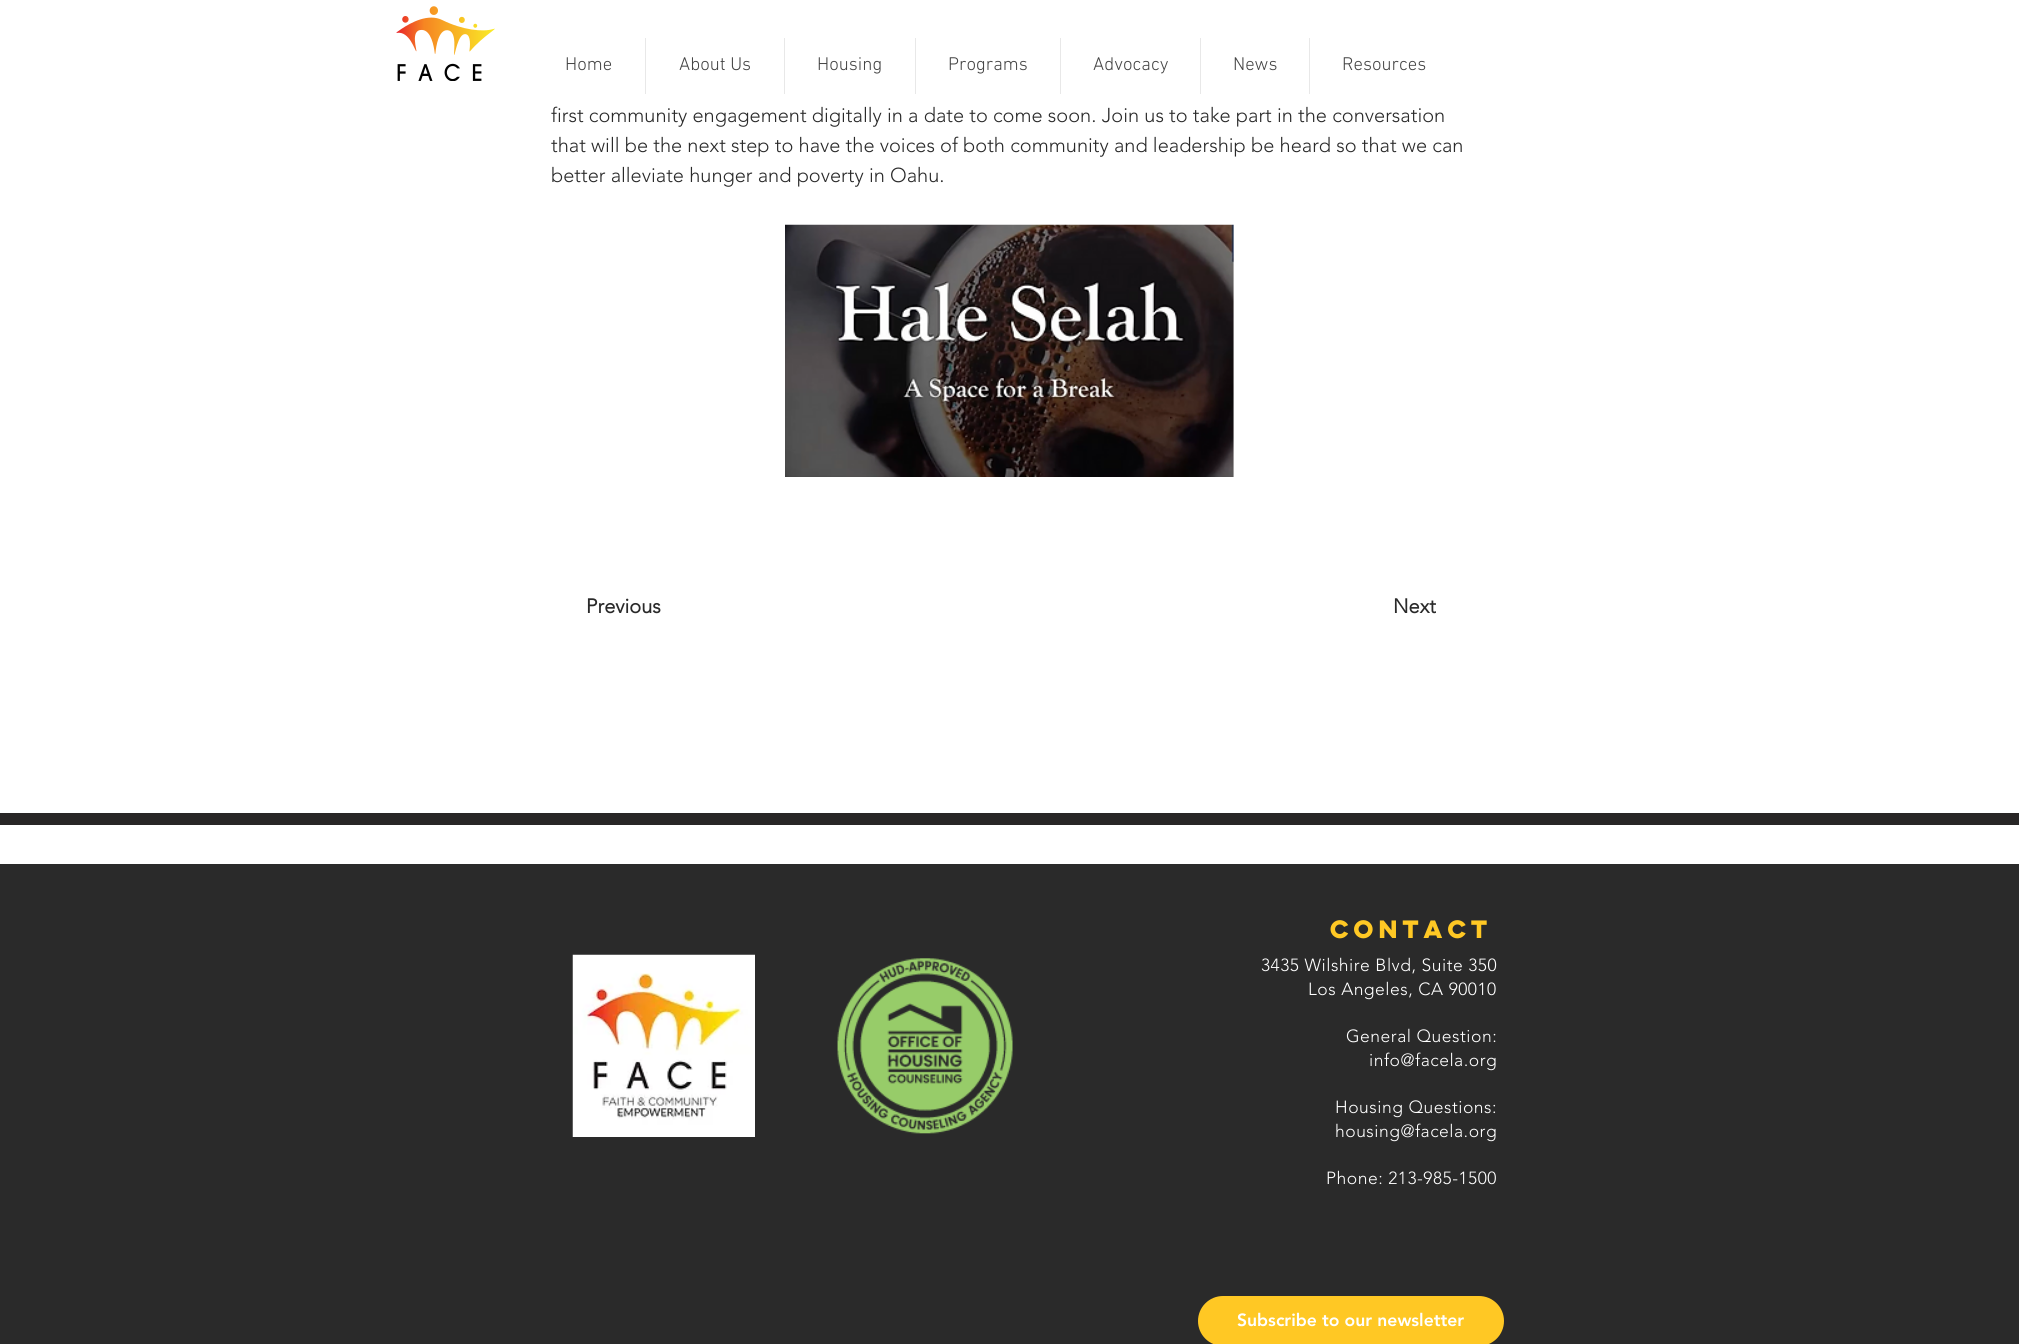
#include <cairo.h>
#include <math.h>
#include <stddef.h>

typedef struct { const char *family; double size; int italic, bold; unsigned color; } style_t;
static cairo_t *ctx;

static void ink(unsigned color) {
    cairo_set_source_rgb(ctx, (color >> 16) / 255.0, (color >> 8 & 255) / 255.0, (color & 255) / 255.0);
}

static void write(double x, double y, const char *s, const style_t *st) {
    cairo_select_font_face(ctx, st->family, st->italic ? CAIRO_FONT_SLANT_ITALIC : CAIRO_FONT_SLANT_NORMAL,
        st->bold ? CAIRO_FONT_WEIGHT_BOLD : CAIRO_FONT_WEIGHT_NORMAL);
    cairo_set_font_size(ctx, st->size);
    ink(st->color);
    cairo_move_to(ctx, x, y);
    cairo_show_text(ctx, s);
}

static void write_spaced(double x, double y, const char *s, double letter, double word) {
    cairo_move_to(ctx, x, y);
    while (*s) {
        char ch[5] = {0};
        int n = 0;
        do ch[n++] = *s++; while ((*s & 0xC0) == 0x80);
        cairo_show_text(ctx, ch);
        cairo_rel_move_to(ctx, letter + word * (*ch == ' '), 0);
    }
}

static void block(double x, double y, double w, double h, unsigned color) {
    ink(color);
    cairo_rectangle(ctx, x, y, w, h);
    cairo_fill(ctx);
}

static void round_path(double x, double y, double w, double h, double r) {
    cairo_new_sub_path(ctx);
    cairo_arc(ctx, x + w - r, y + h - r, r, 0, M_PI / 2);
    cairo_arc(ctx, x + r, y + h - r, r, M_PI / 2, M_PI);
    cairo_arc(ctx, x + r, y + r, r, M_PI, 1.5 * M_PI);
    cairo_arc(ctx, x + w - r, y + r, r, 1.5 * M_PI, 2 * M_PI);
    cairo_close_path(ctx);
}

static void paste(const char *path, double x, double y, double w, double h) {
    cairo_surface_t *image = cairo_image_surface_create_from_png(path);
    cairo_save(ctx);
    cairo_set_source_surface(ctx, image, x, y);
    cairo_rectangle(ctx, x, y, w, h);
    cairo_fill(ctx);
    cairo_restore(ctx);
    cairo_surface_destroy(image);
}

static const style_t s1 = {"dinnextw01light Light", 18.75, 0, 0, 0x444444};
static const style_t s2 = {"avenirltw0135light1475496 Light", 20, 0, 0, 0x2a2a2a};
static const style_t s3 = {"avenirltw0135light1475496", 20, 0, 1, 0x2a2a2a};
static const style_t s4 = {"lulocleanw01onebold", 22.5, 0, 1, 0xffc824};
static const style_t s5 = {"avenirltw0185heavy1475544 Black", 17.5, 0, 0, 0xffffff};

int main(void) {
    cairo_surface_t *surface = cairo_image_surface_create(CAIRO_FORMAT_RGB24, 2019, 1344);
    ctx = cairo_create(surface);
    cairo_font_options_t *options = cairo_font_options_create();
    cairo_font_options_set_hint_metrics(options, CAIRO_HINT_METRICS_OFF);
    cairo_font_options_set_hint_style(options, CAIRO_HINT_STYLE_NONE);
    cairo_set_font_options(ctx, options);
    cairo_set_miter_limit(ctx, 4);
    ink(0xffffff);
    cairo_paint(ctx);
    paste("pic1.png", 396, 6, 99, 75);
    write(565, 70, "Home", &s1);
    block(645, 38, 1, 56, 0xe8e8e8);
    write(679, 70, "About Us", &s1);
    block(784, 38, 1, 56, 0xe8e8e8);
    write(817, 70, "Housing", &s1);
    block(915, 38, 1, 56, 0xe8e8e8);
    write(948, 70, "Programs", &s1);
    block(1060, 38, 1, 56, 0xe8e8e8);
    write(1093, 70, "Advocacy", &s1);
    block(1200, 38, 1, 56, 0xe8e8e8);
    write(1233, 70, "News", &s1);
    block(1309, 38, 1, 56, 0xe8e8e8);
    write(1342, 70, "Resources", &s1);
    write(551, 122, "first community engagement digitally in a date to come soon. Join us to take part in the conversation", &s2);
    write(551, 152, "that will be the next step to have the voices of both community and leadership be heard so that we can", &s2);
    write(551, 182, "better alleviate hunger and poverty in Oahu.", &s2);
    paste("pic2.png", 785, 224, 449, 253);
    write(586, 613, "Previous", &s3);
    write(1393, 613, "Next", &s3);
    block(0, 813, 2019, 12, 0x282626);
    block(0, 864, 2019, 480, 0x2a2a2a);
    write(1330, 938, "Contact", &s4);
    paste("pic3.png", 572, 954, 183, 183);
    paste("pic4.png", 837, 958, 176, 176);
    cairo_select_font_face(ctx, "avenirltw0135light1475496 Light", CAIRO_FONT_SLANT_NORMAL, CAIRO_FONT_WEIGHT_NORMAL);
    cairo_set_font_size(ctx, 17.5);
    ink(0xffffff);
    write_spaced(1261, 971, "3435 Wilshire Blvd, Suite 350", 0.5, 0);
    write_spaced(1308, 995, "Los Angeles, CA 90010", 0.5, 0);
    write_spaced(1346, 1042, "General Question:", 0.5, 0);
    write_spaced(1369, 1066, "info@facela.org", 0.5, 0);
    write_spaced(1335, 1113, "Housing Questions:", 0.5, 0);
    write_spaced(1335, 1137, "housing@facela.org", 0.5, 0);
    write_spaced(1326, 1184, "Phone: 213-985-1500", 0.5, 0);
    ink(0xffc824);
    round_path(1198, 1296, 306, 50, 25);
    cairo_fill(ctx);
    write(1237, 1326, "Subscribe to our newsletter", &s5);
    cairo_surface_write_to_png(surface, "screenshot.png");
    cairo_font_options_destroy(options);
    cairo_destroy(ctx);
    cairo_surface_destroy(surface);
    return 0;
}
